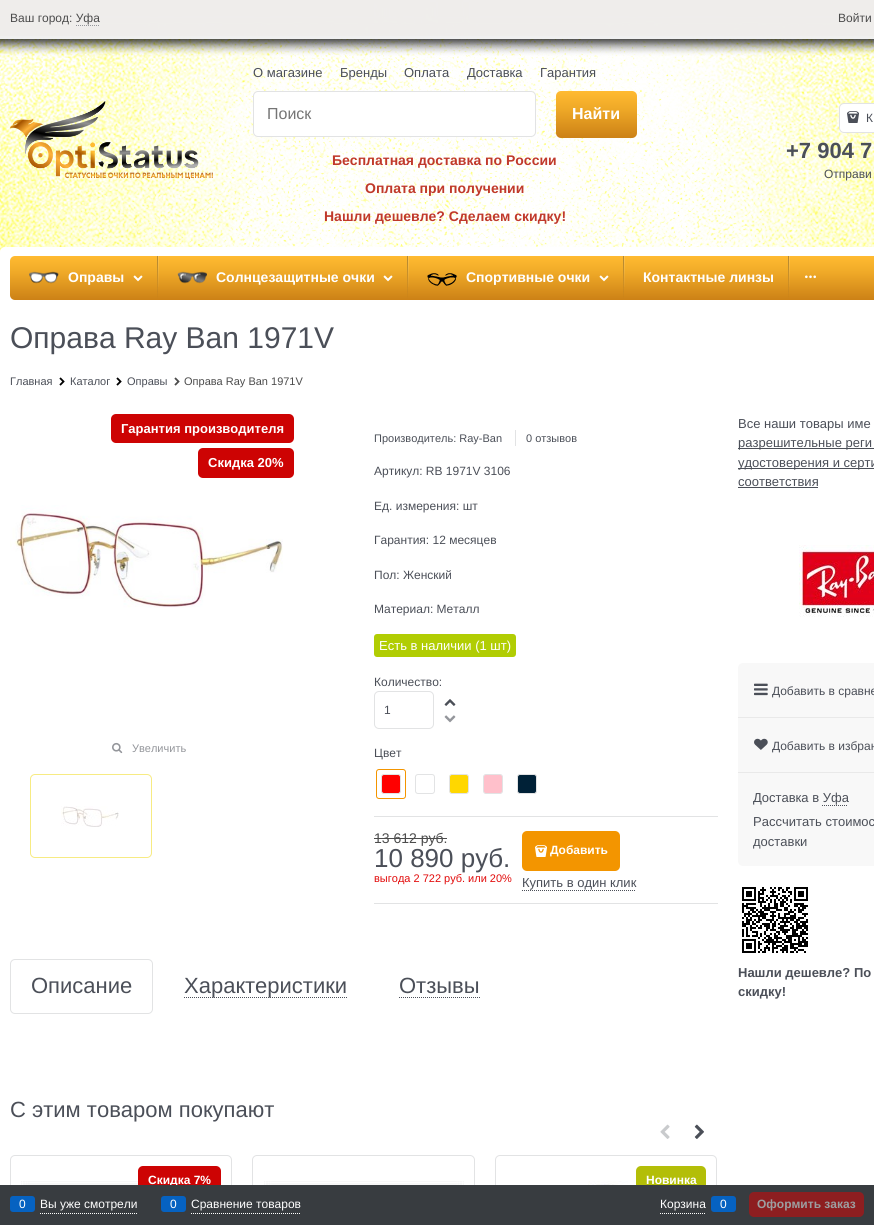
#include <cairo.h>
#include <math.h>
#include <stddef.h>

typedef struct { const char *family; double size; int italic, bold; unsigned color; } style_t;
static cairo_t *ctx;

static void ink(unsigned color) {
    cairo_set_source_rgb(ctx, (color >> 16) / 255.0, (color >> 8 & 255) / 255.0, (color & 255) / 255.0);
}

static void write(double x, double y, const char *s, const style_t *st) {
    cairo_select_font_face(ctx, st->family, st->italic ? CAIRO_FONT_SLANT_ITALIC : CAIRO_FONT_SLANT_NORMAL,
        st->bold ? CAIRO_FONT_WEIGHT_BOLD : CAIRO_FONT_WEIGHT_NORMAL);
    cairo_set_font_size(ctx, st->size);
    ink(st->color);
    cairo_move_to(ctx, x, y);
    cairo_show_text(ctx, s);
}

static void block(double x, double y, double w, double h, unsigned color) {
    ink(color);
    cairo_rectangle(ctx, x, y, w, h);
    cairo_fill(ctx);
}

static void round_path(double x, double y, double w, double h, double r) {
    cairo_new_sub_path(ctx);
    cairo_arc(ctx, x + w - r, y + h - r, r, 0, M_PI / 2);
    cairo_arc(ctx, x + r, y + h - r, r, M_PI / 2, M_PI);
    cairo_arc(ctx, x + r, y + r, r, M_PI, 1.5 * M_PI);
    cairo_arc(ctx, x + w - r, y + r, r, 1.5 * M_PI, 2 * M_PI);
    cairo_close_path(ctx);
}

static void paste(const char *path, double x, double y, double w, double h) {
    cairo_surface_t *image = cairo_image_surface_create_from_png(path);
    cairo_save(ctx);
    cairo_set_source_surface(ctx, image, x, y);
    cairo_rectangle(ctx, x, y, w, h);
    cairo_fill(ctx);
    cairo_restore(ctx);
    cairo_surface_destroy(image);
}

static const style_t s1 = {"Liberation Sans", 12, 0, 0, 0x4c4c4c};
static const style_t s2 = {"Liberation Sans", 13, 0, 0, 0x4b4f58};
static const style_t s3 = {"Liberation Sans", 16, 0, 0, 0x757575};
static const style_t s4 = {"Liberation Sans", 16, 0, 1, 0xffffff};
static const style_t s5 = {"Liberation Sans", 14, 0, 1, 0xc0392b};
static const style_t s6 = {"Liberation Sans", 12, 0, 0, 0x4b4f58};
static const style_t s7 = {"Liberation Sans", 22, 0, 1, 0x4b4f58};
static const style_t s8 = {"Liberation Sans", 14, 0, 1, 0xffffff};
static const style_t s9 = {"Liberation Sans", 30, 0, 0, 0x4b4f58};
static const style_t s10 = {"Liberation Sans", 11, 0, 0, 0x4b4f58};
static const style_t s11 = {"Liberation Sans", 11, 0, 0, 0x4c4c4c};
static const style_t s12 = {"Liberation Sans", 13, 0, 1, 0xffffff};
static const style_t s13 = {"Liberation Sans", 11, 0, 0, 0x94969b};
static const style_t s14 = {"Liberation Sans", 13, 0, 0, 0xffffff};
static const style_t s15 = {"Liberation Sans", 14, 0, 0, 0x4c4c4c};
static const style_t s16 = {"Liberation Sans", 26, 0, 0, 0x4b4f58};
static const style_t s17 = {"Liberation Sans", 11, 0, 0, 0xe20a0a};
static const style_t s18 = {"Liberation Sans", 12, 0, 1, 0xffffff};
static const style_t s19 = {"Liberation Sans", 22, 0, 0, 0x4b4f58};
static const style_t s20 = {"Liberation Sans", 13, 0, 1, 0x4b4f58};
static const style_t s21 = {"Liberation Sans", 12, 0, 0, 0xffffff};
static const style_t s22 = {"Liberation Sans", 12, 0, 1, 0x9c9ea0};

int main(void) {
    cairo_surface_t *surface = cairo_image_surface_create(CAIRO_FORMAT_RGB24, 874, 1225);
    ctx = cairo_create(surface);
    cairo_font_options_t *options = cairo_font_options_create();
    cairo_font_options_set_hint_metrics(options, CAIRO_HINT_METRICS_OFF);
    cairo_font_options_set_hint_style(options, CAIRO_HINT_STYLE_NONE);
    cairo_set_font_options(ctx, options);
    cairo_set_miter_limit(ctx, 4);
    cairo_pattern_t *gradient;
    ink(0xffffff);
    cairo_paint(ctx);
    paste("pic1.png", 0, 0, 874, 252);
    cairo_set_source_rgba(ctx, 1, 1, 1, 0.92);
    cairo_rectangle(ctx, 0, 0, 874, 39);
    cairo_fill(ctx);
    write(10, 22, "Ваш город: Уфа", &s1);
    cairo_new_path(ctx);
    cairo_move_to(ctx, 76, 25.5);
    cairo_line_to(ctx, 100, 25.5);
    ink(0x94969b);
    cairo_set_line_width(ctx, 1);
    cairo_set_dash(ctx, (double[]){1, 1}, 2, 0);
    cairo_stroke(ctx);
    write(838, 22, "Войти", &s1);
    paste("pic2.png", 10, 101, 203, 78);
    write(253, 77, "О магазине", &s2);
    write(340, 77, "Бренды", &s2);
    write(404, 77, "Оплата", &s2);
    write(467, 77, "Доставка", &s2);
    write(540, 77, "Гарантия", &s2);
    ink(0xffffff);
    round_path(253.5, 91.5, 282, 45, 4.5);
    cairo_fill_preserve(ctx);
    ink(0xe2e3e4);
    cairo_set_dash(ctx, NULL, 0, 0);
    cairo_stroke(ctx);
    write(267, 119, "Поиск", &s3);
    gradient = cairo_pattern_create_linear(597, 91, 597, 138);
    cairo_pattern_add_color_stop_rgba(gradient, 0, 1, 0.733, 0.192, 1);
    cairo_pattern_add_color_stop_rgba(gradient, 0.36, 0.941, 0.667, 0.157, 1);
    cairo_pattern_add_color_stop_rgba(gradient, 1, 0.8, 0.506, 0.086, 1);
    cairo_set_source(ctx, gradient);
    cairo_pattern_destroy(gradient);
    round_path(556, 91, 81, 47, 5);
    cairo_fill(ctx);
    write(572, 119, "Найти", &s4);
    write(332, 165, "Бесплатная доставка по России", &s5);
    write(365, 193, "Оплата при получении", &s5);
    write(324, 221, "Нашли дешевле? Сделаем скидку!", &s5);
    ink(0xffffff);
    round_path(839.5, 103.5, 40, 29, 4.5);
    cairo_fill_preserve(ctx);
    ink(0xe2e3e4);
    cairo_stroke(ctx);
    paste("pic3.png", 847, 111, 12, 12);
    write(866, 122, "К", &s6);
    write(786, 158, "+7 904 7", &s7);
    write(824, 178, "Отправи", &s6);
    ink(0xffffff);
    round_path(0, 247, 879, 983, 5);
    cairo_fill(ctx);
    gradient = cairo_pattern_create_linear(485, 256, 485, 300);
    cairo_pattern_add_color_stop_rgba(gradient, 0, 1, 0.733, 0.192, 1);
    cairo_pattern_add_color_stop_rgba(gradient, 0.36, 0.941, 0.667, 0.157, 1);
    cairo_pattern_add_color_stop_rgba(gradient, 1, 0.8, 0.506, 0.086, 1);
    cairo_set_source(ctx, gradient);
    cairo_pattern_destroy(gradient);
    round_path(10, 256, 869, 44, 5);
    cairo_fill(ctx);
    paste("pic4.png", 29, 271, 30, 13);
    write(68, 282, "Оправы", &s8);
    paste("pic5.png", 133, 275, 10, 7);
    gradient = cairo_pattern_create_linear(159, 256, 159, 300);
    cairo_pattern_add_color_stop_rgba(gradient, 0, 1, 1, 1, 0.14);
    cairo_pattern_add_color_stop_rgba(gradient, 0.72, 1, 1, 1, 0.02);
    cairo_pattern_add_color_stop_rgba(gradient, 1, 1, 1, 1, 0);
    cairo_set_source(ctx, gradient);
    cairo_pattern_destroy(gradient);
    cairo_rectangle(ctx, 158, 256, 1, 31);
    cairo_fill(ctx);
    gradient = cairo_pattern_create_linear(158, 256, 158, 300);
    cairo_pattern_add_color_stop_rgba(gradient, 0, 0.224, 0.224, 0.224, 0.39);
    cairo_pattern_add_color_stop_rgba(gradient, 0.17, 0.224, 0.224, 0.224, 0.33);
    cairo_pattern_add_color_stop_rgba(gradient, 0.61, 0.224, 0.224, 0.224, 0.12);
    cairo_pattern_add_color_stop_rgba(gradient, 0.96, 0.224, 0.224, 0.224, 0.01);
    cairo_pattern_add_color_stop_rgba(gradient, 0.98, 1, 1, 1, 0.01);
    cairo_pattern_add_color_stop_rgba(gradient, 1, 1, 1, 1, 0);
    cairo_set_source(ctx, gradient);
    cairo_pattern_destroy(gradient);
    cairo_rectangle(ctx, 157, 256, 1, 44);
    cairo_fill(ctx);
    paste("pic6.png", 177, 271, 30, 13);
    write(216, 282, "Солнцезащитные очки", &s8);
    paste("pic5.png", 383, 275, 10, 7);
    gradient = cairo_pattern_create_linear(409, 256, 409, 300);
    cairo_pattern_add_color_stop_rgba(gradient, 0, 1, 1, 1, 0.14);
    cairo_pattern_add_color_stop_rgba(gradient, 0.72, 1, 1, 1, 0.02);
    cairo_pattern_add_color_stop_rgba(gradient, 1, 1, 1, 1, 0);
    cairo_set_source(ctx, gradient);
    cairo_pattern_destroy(gradient);
    cairo_rectangle(ctx, 408, 256, 1, 31);
    cairo_fill(ctx);
    gradient = cairo_pattern_create_linear(408, 256, 408, 300);
    cairo_pattern_add_color_stop_rgba(gradient, 0, 0.224, 0.224, 0.224, 0.39);
    cairo_pattern_add_color_stop_rgba(gradient, 0.17, 0.224, 0.224, 0.224, 0.33);
    cairo_pattern_add_color_stop_rgba(gradient, 0.61, 0.224, 0.224, 0.224, 0.12);
    cairo_pattern_add_color_stop_rgba(gradient, 0.96, 0.224, 0.224, 0.224, 0.01);
    cairo_pattern_add_color_stop_rgba(gradient, 0.98, 1, 1, 1, 0.01);
    cairo_pattern_add_color_stop_rgba(gradient, 1, 1, 1, 1, 0);
    cairo_set_source(ctx, gradient);
    cairo_pattern_destroy(gradient);
    cairo_rectangle(ctx, 407, 256, 1, 44);
    cairo_fill(ctx);
    paste("pic7.png", 427, 273, 30, 13);
    write(466, 282, "Спортивные очки", &s8);
    paste("pic5.png", 599, 275, 10, 7);
    gradient = cairo_pattern_create_linear(625, 256, 625, 300);
    cairo_pattern_add_color_stop_rgba(gradient, 0, 1, 1, 1, 0.14);
    cairo_pattern_add_color_stop_rgba(gradient, 0.72, 1, 1, 1, 0.02);
    cairo_pattern_add_color_stop_rgba(gradient, 1, 1, 1, 1, 0);
    cairo_set_source(ctx, gradient);
    cairo_pattern_destroy(gradient);
    cairo_rectangle(ctx, 624, 256, 1, 31);
    cairo_fill(ctx);
    gradient = cairo_pattern_create_linear(624, 256, 624, 300);
    cairo_pattern_add_color_stop_rgba(gradient, 0, 0.224, 0.224, 0.224, 0.39);
    cairo_pattern_add_color_stop_rgba(gradient, 0.17, 0.224, 0.224, 0.224, 0.33);
    cairo_pattern_add_color_stop_rgba(gradient, 0.61, 0.224, 0.224, 0.224, 0.12);
    cairo_pattern_add_color_stop_rgba(gradient, 0.96, 0.224, 0.224, 0.224, 0.01);
    cairo_pattern_add_color_stop_rgba(gradient, 0.98, 1, 1, 1, 0.01);
    cairo_pattern_add_color_stop_rgba(gradient, 1, 1, 1, 1, 0);
    cairo_set_source(ctx, gradient);
    cairo_pattern_destroy(gradient);
    cairo_rectangle(ctx, 623, 256, 1, 44);
    cairo_fill(ctx);
    write(643, 282, "Контактные линзы", &s8);
    gradient = cairo_pattern_create_linear(790, 256, 790, 300);
    cairo_pattern_add_color_stop_rgba(gradient, 0, 1, 1, 1, 0.14);
    cairo_pattern_add_color_stop_rgba(gradient, 0.72, 1, 1, 1, 0.02);
    cairo_pattern_add_color_stop_rgba(gradient, 1, 1, 1, 1, 0);
    cairo_set_source(ctx, gradient);
    cairo_pattern_destroy(gradient);
    cairo_rectangle(ctx, 789, 256, 1, 31);
    cairo_fill(ctx);
    gradient = cairo_pattern_create_linear(789, 256, 789, 300);
    cairo_pattern_add_color_stop_rgba(gradient, 0, 0.224, 0.224, 0.224, 0.39);
    cairo_pattern_add_color_stop_rgba(gradient, 0.17, 0.224, 0.224, 0.224, 0.33);
    cairo_pattern_add_color_stop_rgba(gradient, 0.61, 0.224, 0.224, 0.224, 0.12);
    cairo_pattern_add_color_stop_rgba(gradient, 0.96, 0.224, 0.224, 0.224, 0.01);
    cairo_pattern_add_color_stop_rgba(gradient, 0.98, 1, 1, 1, 0.01);
    cairo_pattern_add_color_stop_rgba(gradient, 1, 1, 1, 1, 0);
    cairo_set_source(ctx, gradient);
    cairo_pattern_destroy(gradient);
    cairo_rectangle(ctx, 788, 256, 1, 44);
    cairo_fill(ctx);
    paste("pic8.png", 805, 275, 11, 4);
    write(10, 348, "Оправа Ray Ban 1971V", &s9);
    write(10, 385, "Главная", &s10);
    paste("pic9.png", 59, 377, 6, 9);
    write(70, 385, "Каталог", &s10);
    paste("pic9.png", 116, 377, 6, 9);
    write(127, 385, "Оправы", &s10);
    paste("pic10.png", 174, 377, 6, 9);
    write(184, 385, "Оправа Ray Ban 1971V", &s11);
    ink(0xcd0303);
    round_path(111, 414, 183, 29, 5);
    cairo_fill(ctx);
    write(121, 433, "Гарантия производителя", &s12);
    ink(0xcd0303);
    round_path(198, 448, 96, 30, 5);
    cairo_fill(ctx);
    write(208, 467, "Скидка 20%", &s12);
    paste("pic11.png", 10, 505, 273, 103);
    paste("pic12.png", 112, 742, 11, 12);
    write(132, 752, "Увеличить", &s13);
    round_path(30.5, 774.5, 121, 83, 4.5);
    ink(0xf7eb83);
    cairo_stroke(ctx);
    paste("pic13.png", 61, 806, 58, 21);
    write(374, 442, "Производитель: Ray-Ban", &s10);
    block(515, 430, 1, 16, 0xe2e3e4);
    write(526, 442, "0 отзывов", &s10);
    write(374, 475, "Артикул: RB 1971V 3106", &s6);
    write(374, 510, "Ед. измерения: шт", &s6);
    write(374, 544, "Гарантия: 12 месяцев", &s6);
    write(374, 579, "Пол: Женский", &s6);
    write(374, 613, "Материал: Металл", &s6);
    ink(0xb1cd03);
    round_path(374, 634, 142, 23, 3);
    cairo_fill(ctx);
    write(379, 650, "Есть в наличии (1 шт)", &s14);
    write(374, 686, "Количество:", &s6);
    round_path(374.5, 691.5, 59, 37, 4.5);
    ink(0xe2e3e4);
    cairo_stroke(ctx);
    write(384, 714, "1", &s6);
    paste("pic14.png", 444, 699, 12, 7);
    paste("pic15.png", 444, 715, 12, 8);
    write(374, 757, "Цвет", &s6);
    round_path(376.5, 769.5, 29, 29, 2.5);
    ink(0xf39500);
    cairo_stroke(ctx);
    ink(0xff0000);
    round_path(381.5, 774.5, 19, 19, 2.5);
    cairo_fill_preserve(ctx);
    ink(0xe2e3e4);
    cairo_stroke(ctx);
    round_path(415.5, 774.5, 19, 19, 2.5);
    cairo_stroke(ctx);
    ink(0xffd700);
    round_path(449.5, 774.5, 19, 19, 2.5);
    cairo_fill_preserve(ctx);
    ink(0xe2e3e4);
    cairo_stroke(ctx);
    ink(0xffc0cb);
    round_path(483.5, 774.5, 19, 19, 2.5);
    cairo_fill_preserve(ctx);
    ink(0xe2e3e4);
    cairo_stroke(ctx);
    ink(0x002137);
    round_path(517.5, 774.5, 19, 19, 2.5);
    cairo_fill_preserve(ctx);
    ink(0xe2e3e4);
    cairo_stroke(ctx);
    block(374, 816, 344, 1, 0xe2e3e4);
    block(374, 903, 344, 1, 0xe2e3e4);
    write(374, 843, "13 612 руб.", &s15);
    block(374, 838, 73, 1, 0x4c4c4c);
    write(374, 867, "10 890 руб.", &s16);
    write(374, 882, "выгода 2 722 руб. или 20%", &s17);
    ink(0xf39500);
    round_path(522, 831, 98, 40, 5);
    cairo_fill(ctx);
    paste("pic16.png", 535, 845, 12, 12);
    write(550, 854, "Добавить", &s18);
    write(522, 887, "Купить в один клик", &s2);
    cairo_new_path(ctx);
    cairo_move_to(ctx, 522, 890.5);
    cairo_line_to(ctx, 636, 890.5);
    cairo_set_dash(ctx, (double[]){1, 1}, 2, 0);
    cairo_stroke(ctx);
    round_path(10.5, 959.5, 142, 54, 4.5);
    ink(0xe2e3e4);
    cairo_set_dash(ctx, NULL, 0, 0);
    cairo_stroke(ctx);
    write(31, 993, "Описание", &s19);
    cairo_new_path(ctx);
    cairo_move_to(ctx, 184, 997.5);
    cairo_line_to(ctx, 347, 997.5);
    cairo_set_dash(ctx, (double[]){1, 1}, 2, 0);
    cairo_stroke(ctx);
    write(184, 993, "Характеристики", &s19);
    cairo_new_path(ctx);
    cairo_move_to(ctx, 399, 997.5);
    cairo_line_to(ctx, 480, 997.5);
    cairo_stroke(ctx);
    write(399, 993, "Отзывы", &s19);
    write(10, 1117, "С этим товаром покупают", &s19);
    paste("pic17.png", 660, 1124, 10, 15);
    paste("pic18.png", 694, 1124, 10, 15);
    round_path(10.5, 1155.5, 221, 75, 4.5);
    ink(0xe2e3e4);
    cairo_set_dash(ctx, NULL, 0, 0);
    cairo_stroke(ctx);
    paste("pic19.png", 21, 1181, 117, 4);
    ink(0xcd0303);
    round_path(138, 1166, 83, 28, 5);
    cairo_fill(ctx);
    write(148, 1184, "Скидка 7%", &s18);
    round_path(252.5, 1155.5, 222, 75, 4.5);
    ink(0xe2e3e4);
    cairo_stroke(ctx);
    paste("pic20.png", 264, 1181, 200, 4);
    round_path(495.5, 1155.5, 221, 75, 4.5);
    cairo_stroke(ctx);
    paste("pic21.png", 588, 1181, 40, 4);
    ink(0xb3be08);
    round_path(636, 1166, 70, 28, 5);
    cairo_fill(ctx);
    write(646, 1184, "Новинка", &s18);
    write(738, 428, "Все наши товары име", &s2);
    block(738, 448, 136, 1, 0x4b4f58);
    write(738, 447, "разрешительные реги", &s2);
    block(738, 468, 136, 1, 0x4b4f58);
    write(738, 467, "удостоверения и серти", &s2);
    write(738, 486, "соответствия", &s2);
    block(738, 487, 80, 1, 0x4b4f58);
    paste("pic22.png", 799, 545, 75, 72);
    ink(0xf8f8f8);
    round_path(738, 663, 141, 203, 5);
    cairo_fill(ctx);
    block(738, 717, 136, 1, 0xe9e9e9);
    paste("pic23.png", 754, 683, 14, 13);
    write(772, 695, "Добавить в сравне", &s6);
    block(738, 772, 136, 1, 0xe9e9e9);
    paste("pic24.png", 754, 738, 14, 12);
    write(772, 750, "Добавить в избран", &s6);
    write(753, 802, "Доставка в Уфа", &s2);
    cairo_new_path(ctx);
    cairo_move_to(ctx, 822, 805.5);
    cairo_line_to(ctx, 848, 805.5);
    cairo_set_dash(ctx, (double[]){1, 1}, 2, 0);
    cairo_stroke(ctx);
    write(753, 826, "Рассчитать стоимос", &s2);
    write(753, 846, "доставки", &s2);
    paste("pic25.png", 742, 887, 66, 66);
    write(738, 977, "Нашли дешевле? По", &s20);
    write(738, 996, "скидку!", &s20);
    block(0, 1185, 874, 40, 0x383c40);
    cairo_new_path(ctx);
    cairo_move_to(ctx, 40, 1213.5);
    cairo_line_to(ctx, 137, 1213.5);
    ink(0xffffff);
    cairo_stroke(ctx);
    ink(0x0662c1);
    round_path(10, 1196, 25, 16, 3);
    cairo_fill(ctx);
    write(19, 1208, "0", &s21);
    write(40, 1208, "Вы уже смотрели", &s21);
    cairo_new_path(ctx);
    cairo_move_to(ctx, 191, 1213.5);
    cairo_line_to(ctx, 301, 1213.5);
    cairo_stroke(ctx);
    ink(0x0662c1);
    round_path(161, 1196, 25, 16, 3);
    cairo_fill(ctx);
    write(170, 1208, "0", &s21);
    write(191, 1208, "Сравнение товаров", &s21);
    cairo_new_path(ctx);
    cairo_move_to(ctx, 660, 1213.5);
    cairo_line_to(ctx, 706, 1213.5);
    cairo_stroke(ctx);
    write(660, 1208, "Корзина", &s21);
    ink(0x0662c1);
    round_path(711, 1196, 25, 16, 3);
    cairo_fill(ctx);
    write(720, 1208, "0", &s21);
    ink(0x8d1e20);
    round_path(749, 1192, 115, 25, 5);
    cairo_fill(ctx);
    write(757, 1208, "Оформить заказ", &s22);
    cairo_surface_write_to_png(surface, "screenshot.png");
    cairo_font_options_destroy(options);
    cairo_destroy(ctx);
    cairo_surface_destroy(surface);
    return 0;
}
